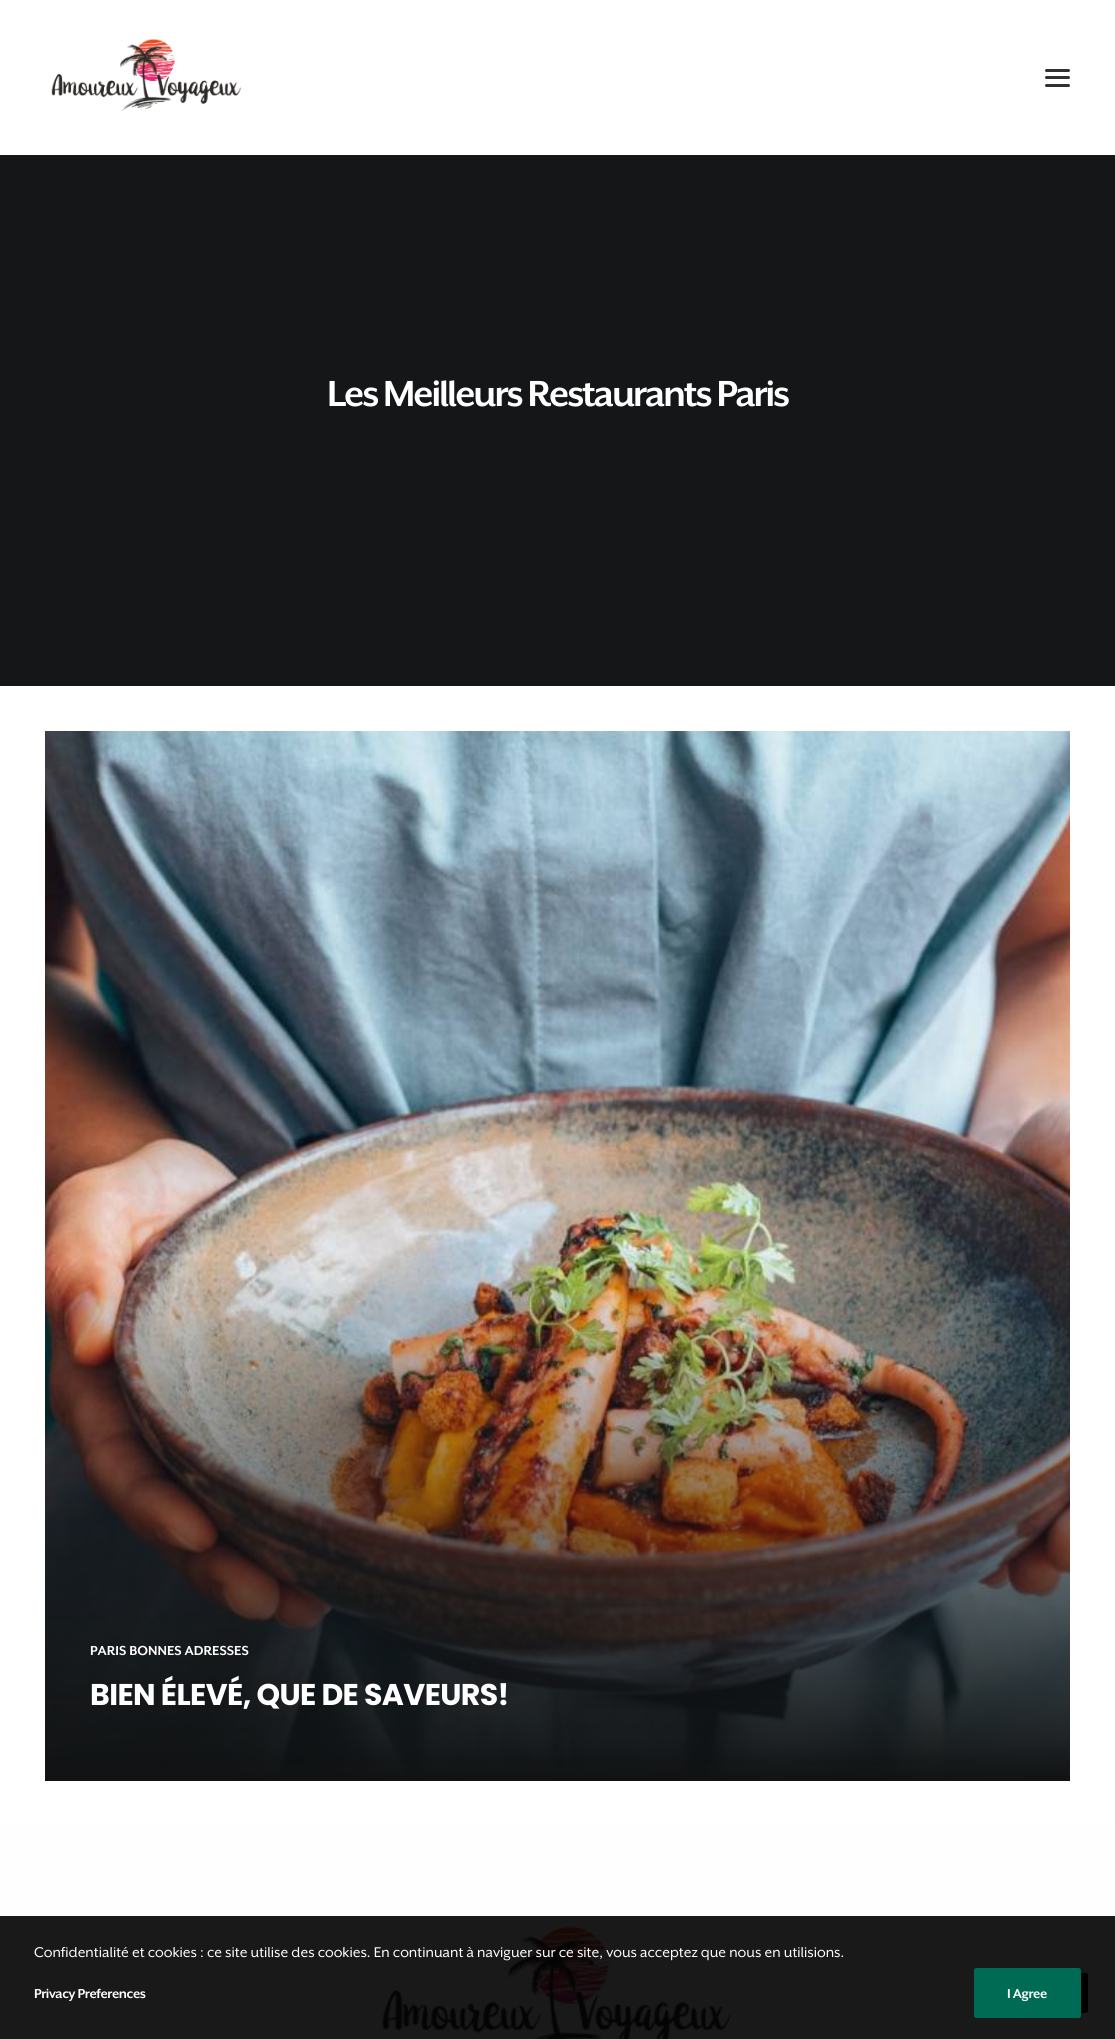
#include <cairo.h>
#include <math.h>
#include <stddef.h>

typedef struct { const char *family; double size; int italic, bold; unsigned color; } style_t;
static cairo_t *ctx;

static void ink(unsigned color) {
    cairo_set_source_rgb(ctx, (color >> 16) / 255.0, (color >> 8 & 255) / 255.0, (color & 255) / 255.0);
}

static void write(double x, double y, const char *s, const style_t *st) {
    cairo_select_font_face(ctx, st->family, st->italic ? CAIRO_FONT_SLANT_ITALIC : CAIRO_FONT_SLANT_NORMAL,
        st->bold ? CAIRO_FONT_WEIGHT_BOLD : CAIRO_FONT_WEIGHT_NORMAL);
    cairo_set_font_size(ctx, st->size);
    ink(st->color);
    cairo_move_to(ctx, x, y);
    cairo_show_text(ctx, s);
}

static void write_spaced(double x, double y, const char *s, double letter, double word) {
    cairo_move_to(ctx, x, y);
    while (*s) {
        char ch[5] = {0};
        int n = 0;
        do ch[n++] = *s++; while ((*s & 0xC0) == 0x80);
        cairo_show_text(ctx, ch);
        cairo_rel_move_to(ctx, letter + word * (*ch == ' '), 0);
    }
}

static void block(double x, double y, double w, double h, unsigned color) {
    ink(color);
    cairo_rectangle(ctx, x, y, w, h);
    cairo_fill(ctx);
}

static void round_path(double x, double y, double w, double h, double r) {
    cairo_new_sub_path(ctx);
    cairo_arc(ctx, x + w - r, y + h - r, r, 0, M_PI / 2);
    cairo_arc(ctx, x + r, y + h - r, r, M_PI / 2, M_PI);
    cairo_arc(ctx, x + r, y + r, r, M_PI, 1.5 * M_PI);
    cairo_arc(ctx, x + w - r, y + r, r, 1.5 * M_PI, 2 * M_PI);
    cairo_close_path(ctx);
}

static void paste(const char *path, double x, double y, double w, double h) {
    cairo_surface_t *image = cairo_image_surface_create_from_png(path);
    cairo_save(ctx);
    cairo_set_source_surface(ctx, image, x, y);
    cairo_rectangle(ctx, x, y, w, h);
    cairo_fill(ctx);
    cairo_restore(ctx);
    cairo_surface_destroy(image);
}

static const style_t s1 = {"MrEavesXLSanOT", 15, 0, 1, 0xffffff};
static const style_t s2 = {"MrEavesXLSanOT", 16.25, 0, 0, 0xffffff};

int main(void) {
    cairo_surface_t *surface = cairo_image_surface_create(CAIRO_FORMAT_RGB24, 1115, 2039);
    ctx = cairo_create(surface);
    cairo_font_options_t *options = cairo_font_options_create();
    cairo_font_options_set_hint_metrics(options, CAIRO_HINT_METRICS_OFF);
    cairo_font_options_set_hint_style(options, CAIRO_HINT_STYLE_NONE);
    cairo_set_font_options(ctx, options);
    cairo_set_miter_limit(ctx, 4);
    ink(0x141618);
    cairo_paint(ctx);
    block(0, 0, 1115, 155, 0xffffff);
    paste("pic1.png", 51, 39, 191, 72);
    ink(0x303133);
    round_path(1045, 76, 25, 3, 1.5);
    cairo_fill(ctx);
    round_path(1045, 69, 25, 3, 1.5);
    cairo_fill(ctx);
    round_path(1045, 84, 25, 3, 1.5);
    cairo_fill(ctx);
    cairo_select_font_face(ctx, "MrEavesXLSanOT", CAIRO_FONT_SLANT_NORMAL, CAIRO_FONT_WEIGHT_BOLD);
    cairo_set_font_size(ctx, 41.75);
    ink(0xffffff);
    write_spaced(327, 406, "Les Meilleurs Restaurants Paris", -2.1, 0);
    block(0, 686, 1115, 1140, 0xffffff);
    paste("pic2.png", 45, 731, 1025, 1050);
    write(90, 1655, "PARIS BONNES ADRESSES", &s1);
    cairo_select_font_face(ctx, "Poppins", CAIRO_FONT_SLANT_NORMAL, CAIRO_FONT_WEIGHT_BOLD);
    cairo_set_font_size(ctx, 30);
    write_spaced(90, 1705, "BIEN ÉLEVÉ, QUE DE SAVEURS!", -0.6, 0);
    block(0, 1826, 1115, 90, 0xfefefe);
    block(0, 1916, 1115, 123, 0x191919);
    paste("pic3.png", 381, 1926, 350, 113);
    write(34, 1957, "Confidentialité et cookies : ce site utilise des cookies. En continuant à naviguer sur ce site, vous acceptez que nous en utilisions.", &s2);
    cairo_select_font_face(ctx, "MrEavesXLSanOT", CAIRO_FONT_SLANT_NORMAL, CAIRO_FONT_WEIGHT_BOLD);
    cairo_set_font_size(ctx, 15);
    write_spaced(34, 1998, "Privacy Preferences", -0.4, 0);
    ink(0x000000);
    round_path(1048.5, 1973.5, 39, 39, 2);
    cairo_fill_preserve(ctx);
    cairo_set_line_width(ctx, 1);
    cairo_stroke(ctx);
    ink(0x006b54);
    round_path(974, 1968, 107, 50, 2.5);
    cairo_fill(ctx);
    ink(0xffffff);
    write_spaced(1007, 1998, "I Agree", -0.4, 0);
    cairo_surface_write_to_png(surface, "screenshot.png");
    cairo_font_options_destroy(options);
    cairo_destroy(ctx);
    cairo_surface_destroy(surface);
    return 0;
}
